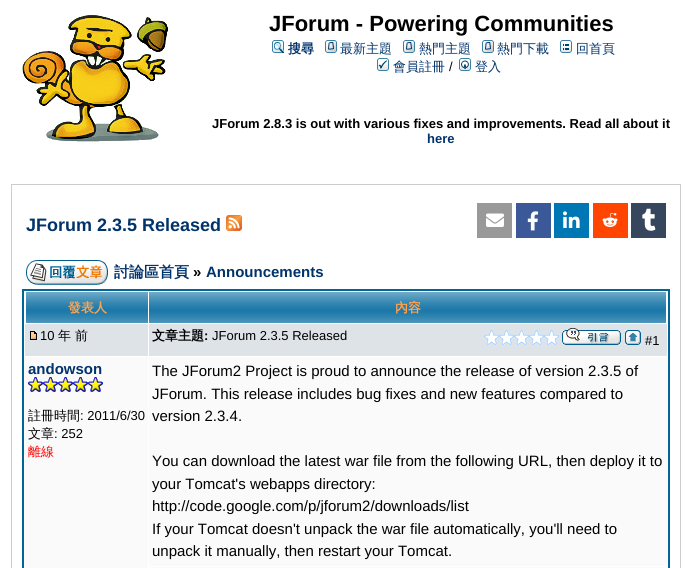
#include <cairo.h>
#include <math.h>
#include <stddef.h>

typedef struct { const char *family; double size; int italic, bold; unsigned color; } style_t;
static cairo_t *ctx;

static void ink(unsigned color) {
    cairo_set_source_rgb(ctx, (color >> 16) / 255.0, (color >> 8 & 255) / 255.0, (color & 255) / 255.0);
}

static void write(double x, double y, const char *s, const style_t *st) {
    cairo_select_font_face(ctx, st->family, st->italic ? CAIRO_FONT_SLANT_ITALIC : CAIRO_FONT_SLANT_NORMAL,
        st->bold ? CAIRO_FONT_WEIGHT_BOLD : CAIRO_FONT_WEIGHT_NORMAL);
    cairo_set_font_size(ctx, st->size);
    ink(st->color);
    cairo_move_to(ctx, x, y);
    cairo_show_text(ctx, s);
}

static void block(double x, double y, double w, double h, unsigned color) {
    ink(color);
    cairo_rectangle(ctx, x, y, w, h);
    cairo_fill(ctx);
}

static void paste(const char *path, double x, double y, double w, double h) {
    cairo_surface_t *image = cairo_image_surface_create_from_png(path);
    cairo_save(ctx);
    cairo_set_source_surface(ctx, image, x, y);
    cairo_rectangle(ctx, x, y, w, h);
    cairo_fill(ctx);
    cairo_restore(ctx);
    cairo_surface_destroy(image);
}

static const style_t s1 = {"Liberation Sans", 22, 0, 1, 0x000000};
static const style_t s2 = {"WenQuanYi Zen Hei", 13, 0, 1, 0x01336b};
static const style_t s3 = {"WenQuanYi Zen Hei Medium", 13, 0, 0, 0x01336b};
static const style_t s4 = {"Liberation Sans", 13, 0, 0, 0x000000};
static const style_t s5 = {"Liberation Sans", 13, 0, 1, 0x000000};
static const style_t s6 = {"Liberation Sans", 13, 0, 1, 0x01336b};
static const style_t s7 = {"Liberation Sans", 18, 0, 1, 0x01336b};
static const style_t s8 = {"WenQuanYi Zen Hei", 15, 0, 1, 0x01336b};
static const style_t s9 = {"Liberation Sans", 15, 0, 1, 0x000000};
static const style_t s10 = {"Liberation Sans", 15, 0, 1, 0x01336b};
static const style_t s11 = {"WenQuanYi Zen Hei", 13, 0, 1, 0xffa34f};
static const style_t s12 = {"WenQuanYi Zen Hei Medium", 13, 0, 0, 0x000000};
static const style_t s13 = {"WenQuanYi Zen Hei", 13, 0, 1, 0x000000};
static const style_t s14 = {"WenQuanYi Zen Hei Medium", 13, 0, 0, 0xff0000};
static const style_t s15 = {"Liberation Sans", 15, 0, 0, 0x000000};

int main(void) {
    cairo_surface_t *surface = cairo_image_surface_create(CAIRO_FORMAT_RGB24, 692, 568);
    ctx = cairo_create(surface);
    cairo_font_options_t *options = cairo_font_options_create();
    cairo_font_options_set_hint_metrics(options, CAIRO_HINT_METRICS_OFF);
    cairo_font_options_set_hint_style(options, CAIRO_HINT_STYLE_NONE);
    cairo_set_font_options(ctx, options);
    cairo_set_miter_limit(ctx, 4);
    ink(0xffffff);
    cairo_paint(ctx);
    paste("pic1.png", 22, 15, 146, 127);
    write(269, 31, "JForum - Powering Communities", &s1);
    paste("pic2.png", 272, 40, 12, 13);
    write(288, 53, "搜尋", &s2);
    paste("pic3.png", 325, 40, 12, 13);
    write(340, 53, "最新主題", &s3);
    paste("pic3.png", 403, 40, 12, 13);
    write(419, 53, "熱門主題", &s3);
    paste("pic3.png", 482, 40, 12, 13);
    write(497, 53, "熱門下載", &s3);
    paste("pic4.png", 560, 40, 12, 13);
    write(576, 53, "回首頁", &s3);
    paste("pic5.png", 377, 58, 12, 13);
    write(393, 71, "會員註冊", &s3);
    write(449, 71, "/", &s4);
    paste("pic6.png", 459, 58, 12, 13);
    write(475, 71, "登入", &s3);
    write(212, 128, "JForum 2.8.3 is out with various fixes and improvements. Read all about it", &s5);
    write(427, 143, "here", &s6);
    cairo_rectangle(ctx, 11.5, 184.5, 669, 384);
    ink(0xcccccc);
    cairo_set_line_width(ctx, 1);
    cairo_stroke(ctx);
    write(26, 231, "JForum 2.3.5 Released", &s7);
    paste("pic7.png", 226, 215, 16, 16);
    block(477, 203, 35, 35, 0x999999);
    paste("pic8.png", 486, 213, 18, 14);
    block(516, 203, 35, 35, 0x3b5998);
    paste("pic9.png", 527, 211, 12, 20);
    block(554, 203, 35, 35, 0x0077b5);
    paste("pic10.png", 563, 211, 17, 17);
    block(593, 203, 35, 35, 0xff4500);
    paste("pic11.png", 602, 213, 16, 14);
    block(631, 203, 35, 35, 0x36465d);
    paste("pic12.png", 642, 208, 14, 23);
    paste("pic13.png", 26, 260, 82, 25);
    write(114, 277, "討論區首頁", &s8);
    write(193, 277, "»", &s9);
    write(206, 277, "Announcements", &s10);
    cairo_rectangle(ctx, 23, 290, 646, 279);
    ink(0x006699);
    cairo_set_line_width(ctx, 2);
    cairo_stroke(ctx);
    paste("pic14.png", 26, 292, 122, 31);
    write(68, 312, "發表人", &s11);
    paste("pic15.png", 149, 292, 517, 31);
    write(395, 312, "內容", &s11);
    block(25, 324, 123, 32, 0xdee3e7);
    paste("pic16.png", 30, 331, 7, 9);
    write(40, 340, "10", &s4);
    write(58, 340, "年 前", &s12);
    block(149, 324, 518, 32, 0xdee3e7);
    write(152, 340, "文章主題", &s13);
    write(204, 340, ":", &s5);
    write(212, 340, "JForum 2.3.5 Released", &s4);
    paste("pic17.png", 484, 330, 15, 15);
    paste("pic17.png", 499, 330, 15, 15);
    paste("pic17.png", 514, 330, 15, 15);
    paste("pic17.png", 529, 330, 15, 15);
    paste("pic17.png", 544, 330, 15, 15);
    paste("pic18.png", 562, 327, 59, 18);
    paste("pic19.png", 625, 330, 16, 15);
    write(645, 345, "#1", &s4);
    block(25, 357, 123, 211, 0xfafafa);
    write(28, 374, "andowson", &s10);
    paste("pic20.png", 28, 377, 15, 15);
    paste("pic20.png", 43, 377, 15, 15);
    paste("pic20.png", 58, 377, 15, 15);
    paste("pic20.png", 73, 377, 15, 15);
    paste("pic20.png", 88, 377, 15, 15);
    write(28, 420, "註冊時間", &s12);
    write(80, 420, ": 2011/6/30", &s4);
    write(28, 438, "文章", &s12);
    write(54, 438, ": 252", &s4);
    write(28, 456, "離線", &s14);
    block(149, 357, 518, 209, 0xfafafa);
    write(152, 376, "The JForum2 Project is proud to announce the release of version 2.3.5 of", &s15);
    write(152, 399, "JForum. This release includes bug fixes and new features compared to", &s15);
    write(152, 421, "version 2.3.4.", &s15);
    write(152, 466, "You can download the latest war file from the following URL, then deploy it to", &s15);
    write(152, 489, "your Tomcat's webapps directory:", &s15);
    write(152, 511, "http://code.google.com/p/jforum2/downloads/list", &s15);
    write(152, 534, "If your Tomcat doesn't unpack the war file automatically, you'll need to", &s15);
    write(152, 556, "unpack it manually, then restart your Tomcat.", &s15);
    block(149, 567, 518, 1, 0xfafafa);
    cairo_surface_write_to_png(surface, "screenshot.png");
    cairo_font_options_destroy(options);
    cairo_destroy(ctx);
    cairo_surface_destroy(surface);
    return 0;
}
